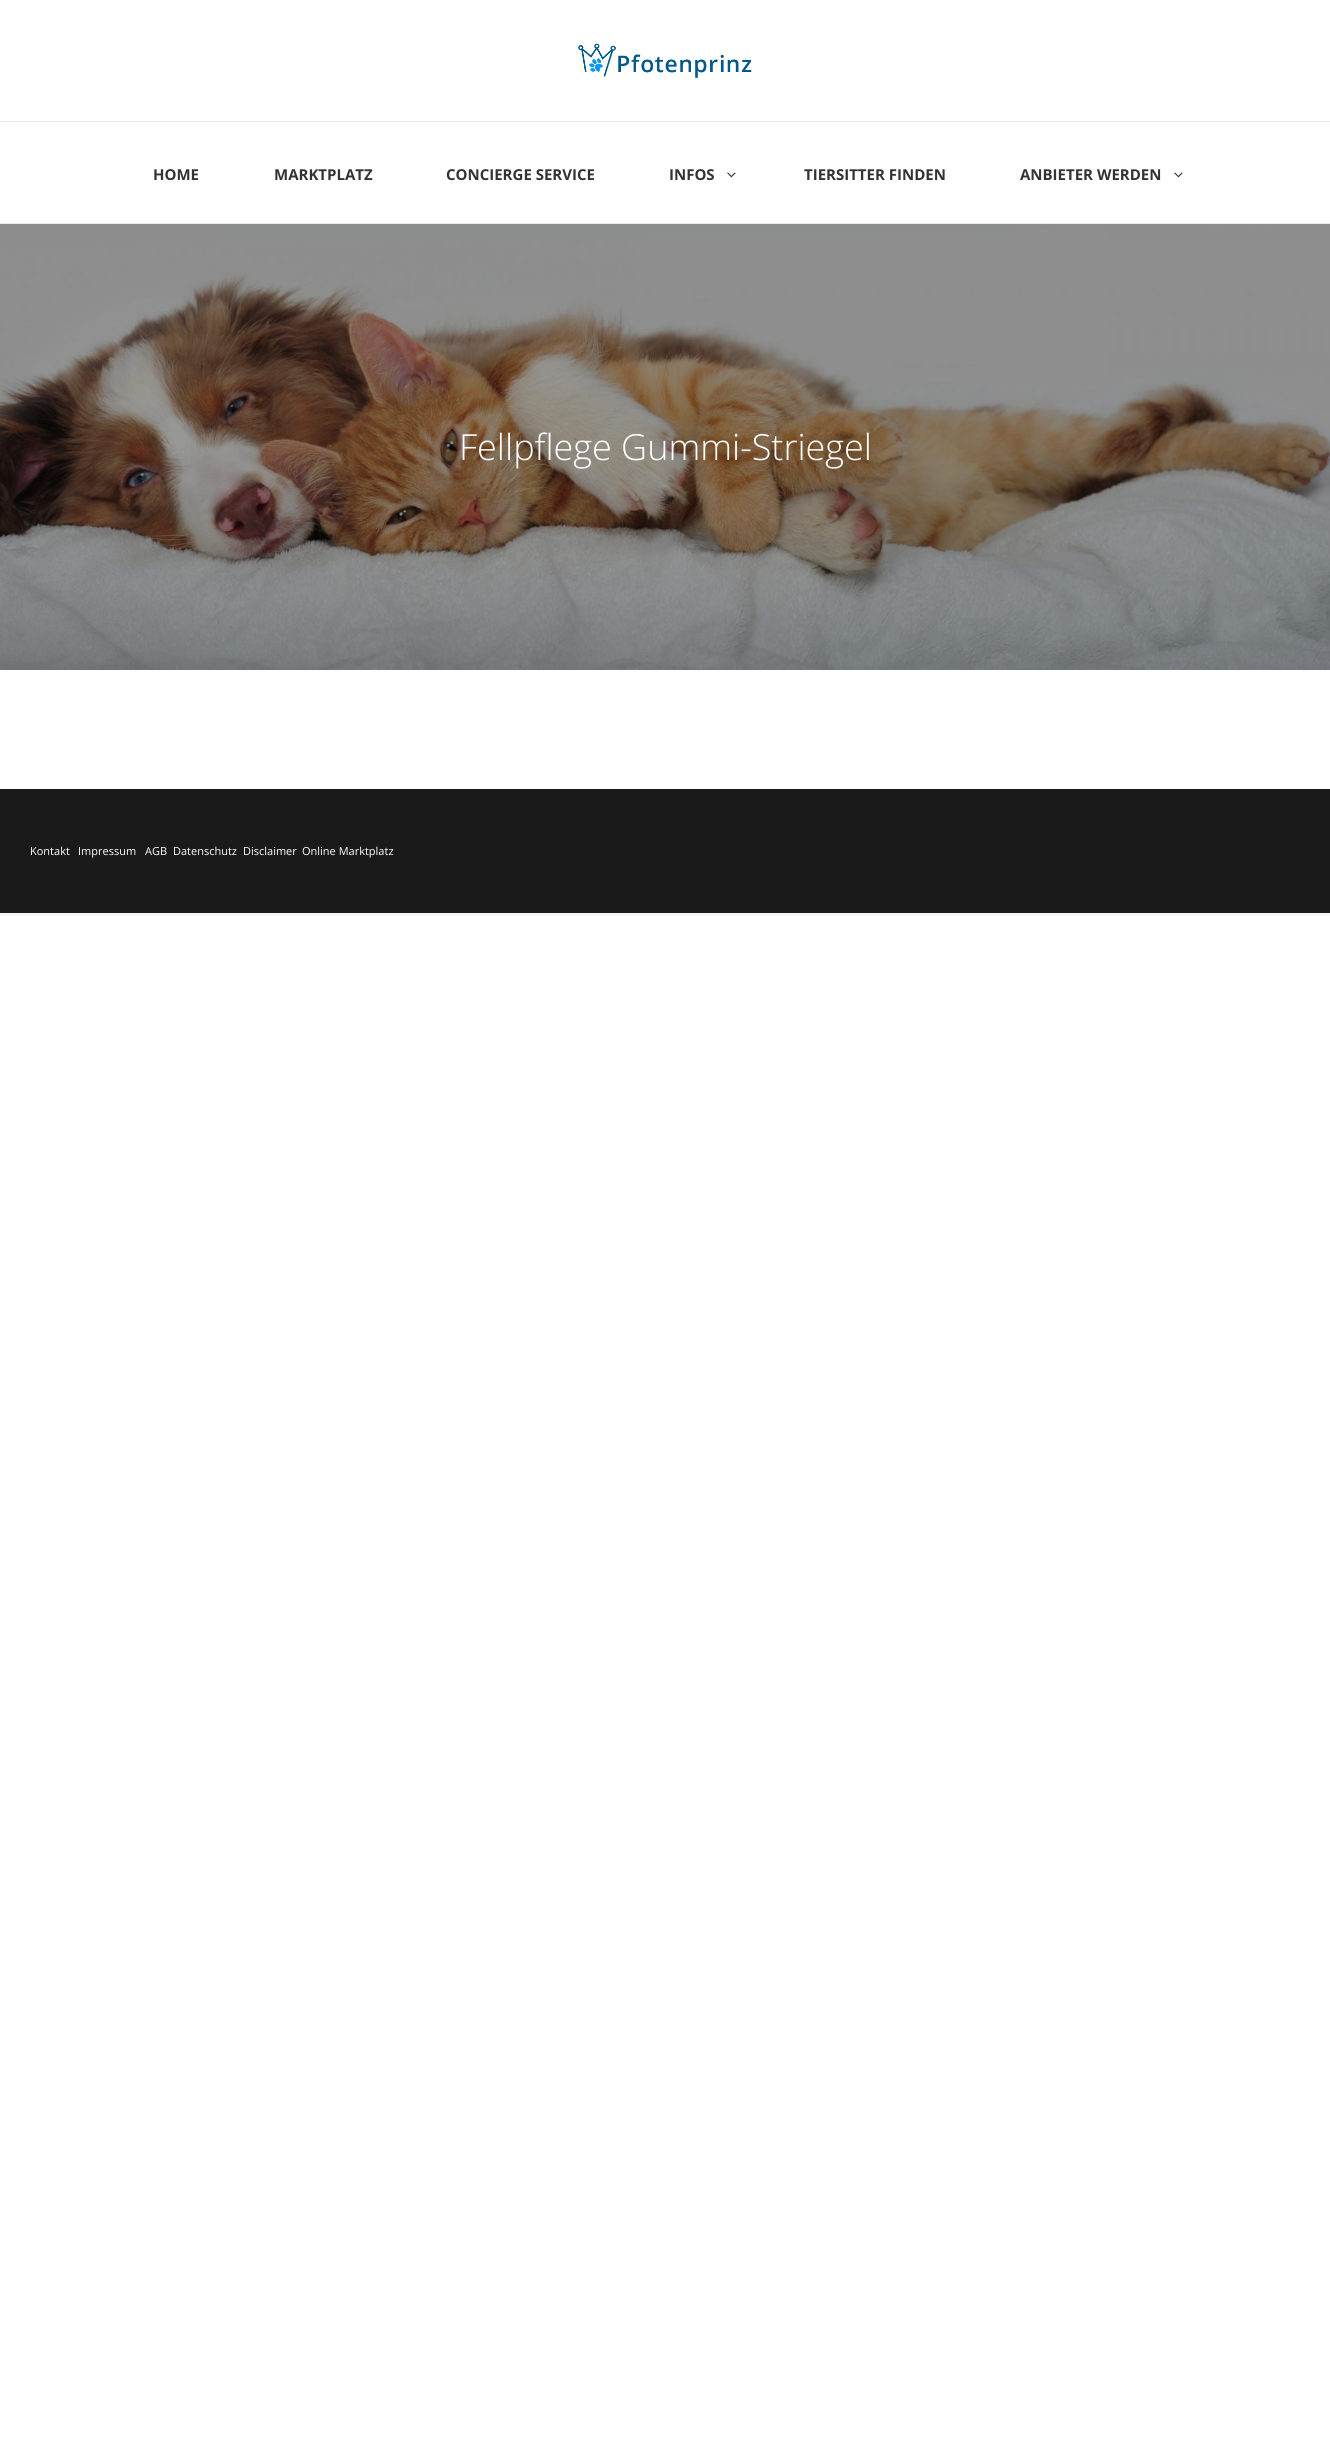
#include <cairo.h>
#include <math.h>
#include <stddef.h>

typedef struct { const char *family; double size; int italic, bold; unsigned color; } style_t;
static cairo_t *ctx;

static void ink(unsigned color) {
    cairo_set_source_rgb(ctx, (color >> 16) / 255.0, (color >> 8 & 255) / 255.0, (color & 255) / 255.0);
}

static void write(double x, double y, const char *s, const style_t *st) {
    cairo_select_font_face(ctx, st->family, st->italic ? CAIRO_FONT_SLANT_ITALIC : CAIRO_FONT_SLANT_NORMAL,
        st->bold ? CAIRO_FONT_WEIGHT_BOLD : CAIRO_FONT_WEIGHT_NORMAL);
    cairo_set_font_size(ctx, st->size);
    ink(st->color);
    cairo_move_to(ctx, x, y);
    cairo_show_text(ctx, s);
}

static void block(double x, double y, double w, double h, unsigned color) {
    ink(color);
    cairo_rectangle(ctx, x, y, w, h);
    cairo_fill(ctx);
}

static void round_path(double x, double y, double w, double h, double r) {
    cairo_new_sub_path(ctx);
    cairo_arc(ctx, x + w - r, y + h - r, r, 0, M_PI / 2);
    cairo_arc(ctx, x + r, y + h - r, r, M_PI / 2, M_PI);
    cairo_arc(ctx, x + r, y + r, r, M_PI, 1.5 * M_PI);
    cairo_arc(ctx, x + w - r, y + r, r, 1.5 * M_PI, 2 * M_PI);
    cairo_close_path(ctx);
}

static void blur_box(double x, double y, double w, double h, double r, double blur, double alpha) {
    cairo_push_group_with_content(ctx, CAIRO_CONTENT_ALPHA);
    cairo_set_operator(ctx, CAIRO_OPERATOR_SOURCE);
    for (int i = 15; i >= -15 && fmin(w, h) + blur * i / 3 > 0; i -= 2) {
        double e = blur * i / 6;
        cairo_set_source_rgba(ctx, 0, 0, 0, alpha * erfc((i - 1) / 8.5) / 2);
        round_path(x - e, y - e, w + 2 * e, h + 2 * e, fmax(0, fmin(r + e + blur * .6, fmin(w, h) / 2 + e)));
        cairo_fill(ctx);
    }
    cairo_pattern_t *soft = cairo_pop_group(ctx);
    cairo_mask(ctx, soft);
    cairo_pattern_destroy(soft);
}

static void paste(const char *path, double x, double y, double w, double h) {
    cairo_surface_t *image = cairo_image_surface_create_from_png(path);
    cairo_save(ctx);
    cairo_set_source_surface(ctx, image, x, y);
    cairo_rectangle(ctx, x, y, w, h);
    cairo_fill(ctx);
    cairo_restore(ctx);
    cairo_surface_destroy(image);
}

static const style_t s1 = {"Open Sans", 15, 0, 1, 0x333333};
static const style_t s2 = {"Open Sans Light", 36, 0, 0, 0xffffff};
static const style_t s3 = {"Open Sans", 11, 0, 0, 0xffffff};

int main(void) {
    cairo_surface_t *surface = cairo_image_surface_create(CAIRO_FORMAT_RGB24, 1330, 2441);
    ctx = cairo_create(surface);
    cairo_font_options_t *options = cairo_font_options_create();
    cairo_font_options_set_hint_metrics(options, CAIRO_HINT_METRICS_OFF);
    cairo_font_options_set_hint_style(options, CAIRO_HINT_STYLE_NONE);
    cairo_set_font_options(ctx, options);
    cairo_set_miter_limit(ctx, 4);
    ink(0xffffff);
    cairo_paint(ctx);
    cairo_save(ctx);
    cairo_rectangle(ctx, 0, 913, 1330, 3);
    cairo_clip(ctx);
    ink(0x000000);
    blur_box(-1, 1, 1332, 915, 0, 1.5, 0.05);
    cairo_restore(ctx);
    paste("pic1.png", 578, 43, 174, 35);
    block(0, 121, 1330, 1, 0xebebeb);
    block(0, 223, 1330, 1, 0xebebeb);
    write(153, 180, "HOME", &s1);
    write(274, 180, "MARKTPLATZ", &s1);
    write(446, 180, "CONCIERGE SERVICE", &s1);
    write(669, 180, "INFOS", &s1);
    paste("pic2.png", 727, 172, 9, 6);
    write(804, 180, "TIERSITTER FINDEN", &s1);
    write(1020, 180, "ANBIETER WERDEN", &s1);
    paste("pic2.png", 1174, 172, 9, 6);
    paste("pic3.png", 0, 224, 1330, 446);
    write(459, 460, "Fellpflege Gummi-Striegel", &s2);
    block(0, 789, 1330, 124, 0x1a1a1a);
    write(30, 855, "Kontakt", &s3);
    write(78, 855, "Impressum", &s3);
    write(145, 855, "AGB", &s3);
    write(173, 855, "Datenschutz", &s3);
    write(243, 855, "Disclaimer", &s3);
    write(302, 855, "Online Marktplatz", &s3);
    cairo_surface_write_to_png(surface, "screenshot.png");
    cairo_font_options_destroy(options);
    cairo_destroy(ctx);
    cairo_surface_destroy(surface);
    return 0;
}
